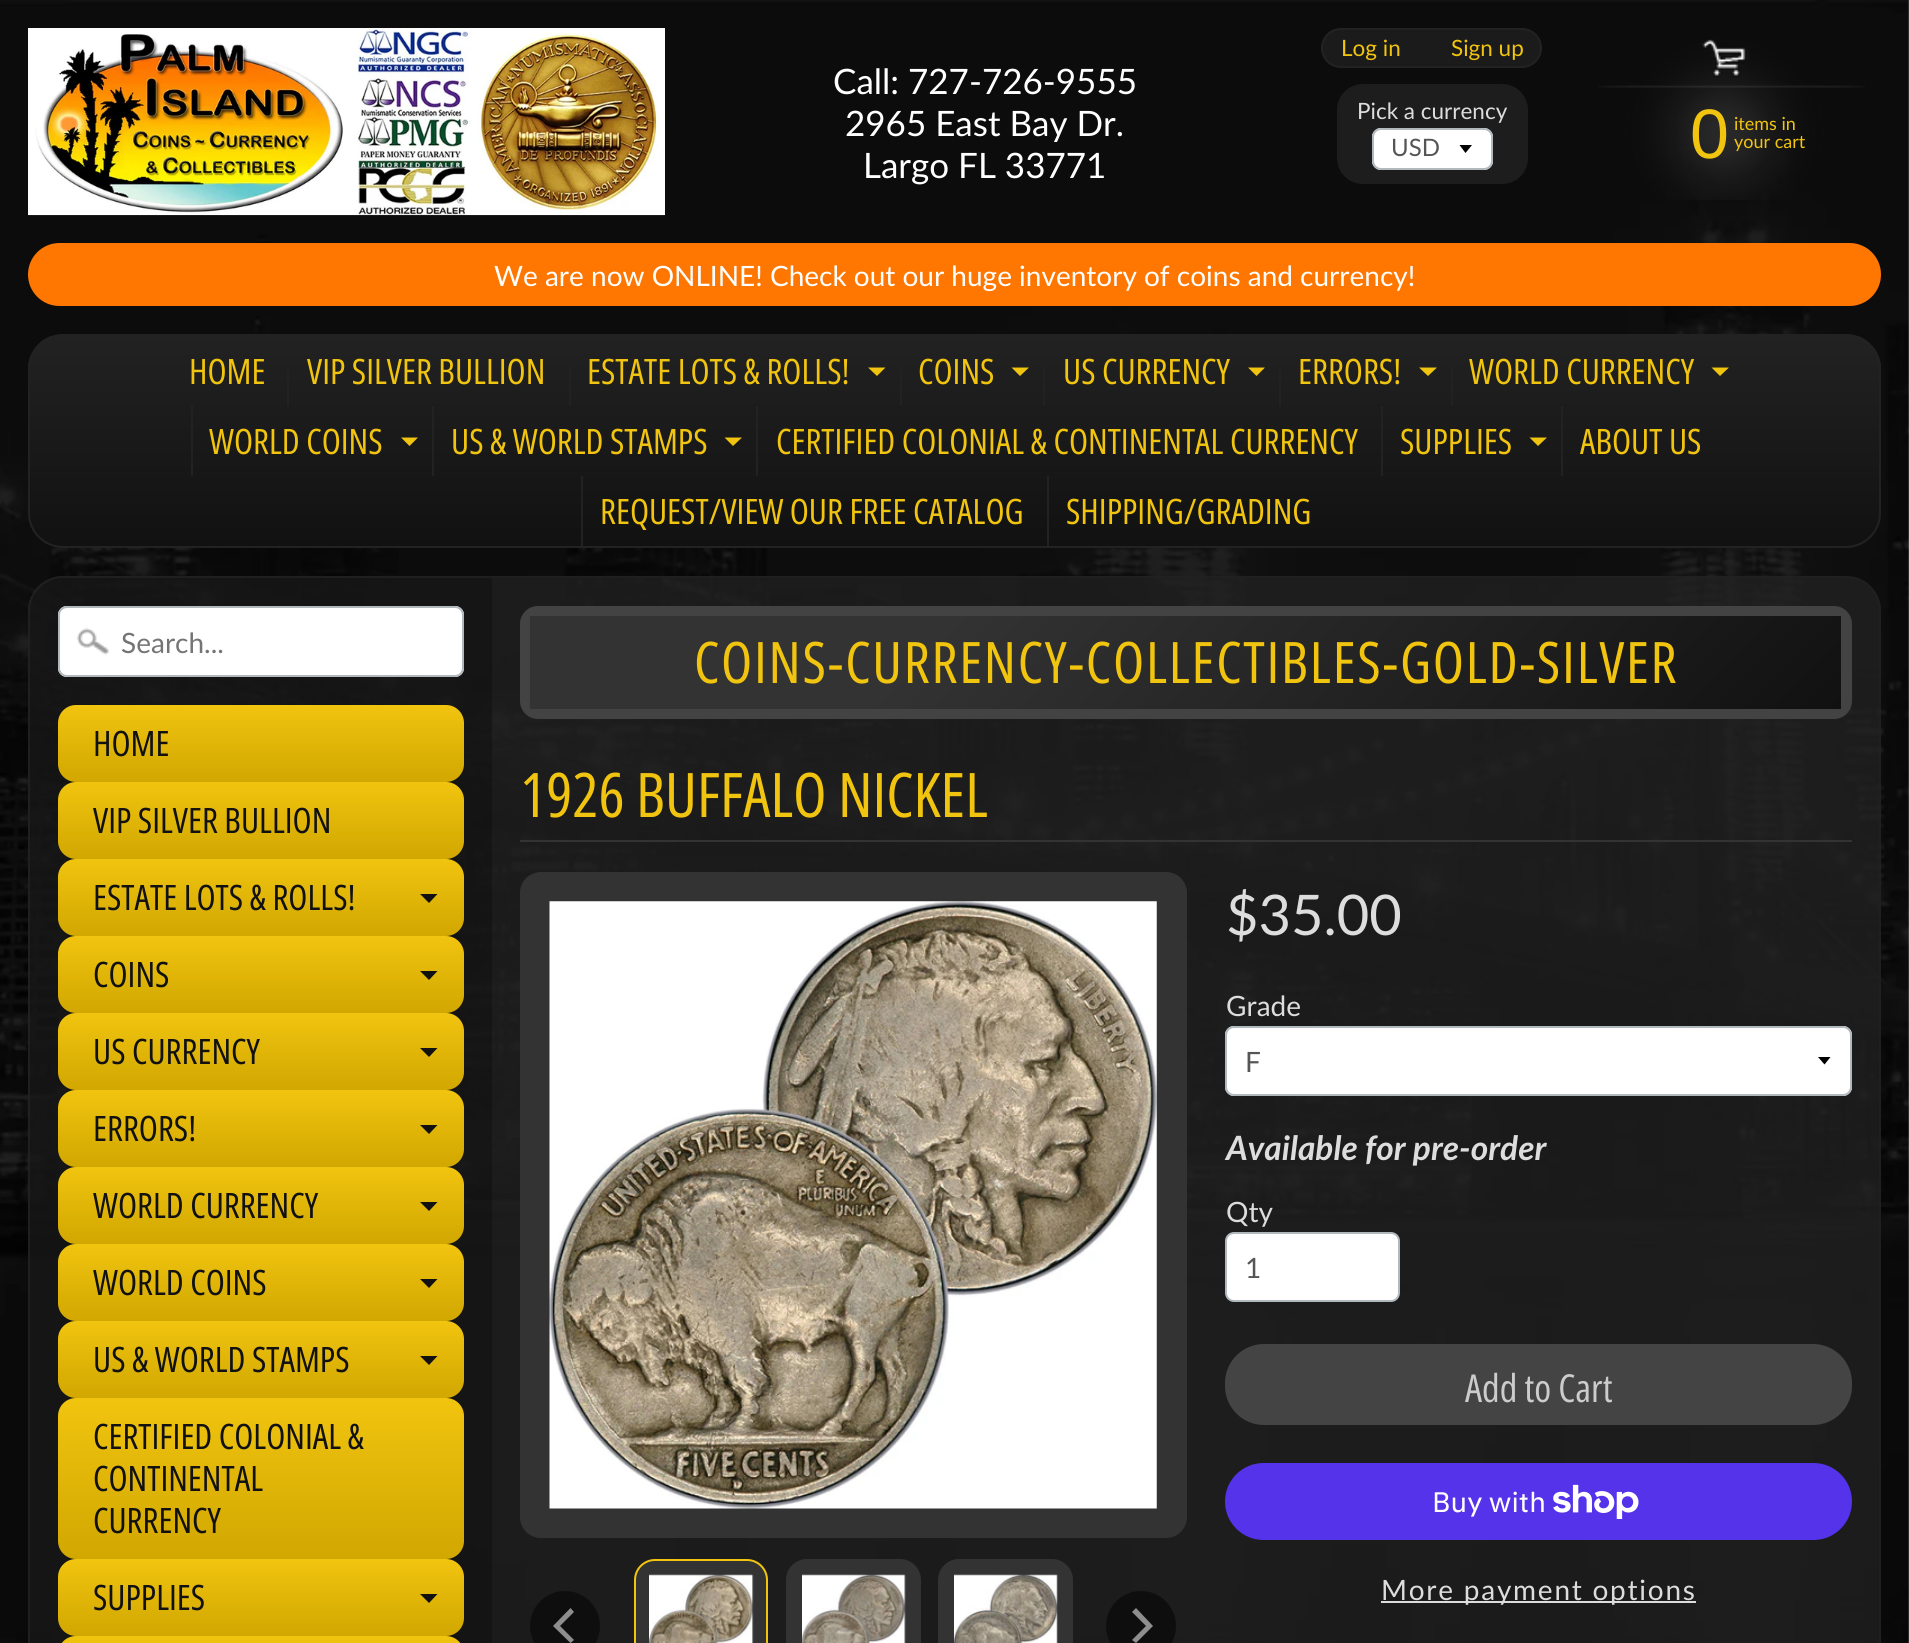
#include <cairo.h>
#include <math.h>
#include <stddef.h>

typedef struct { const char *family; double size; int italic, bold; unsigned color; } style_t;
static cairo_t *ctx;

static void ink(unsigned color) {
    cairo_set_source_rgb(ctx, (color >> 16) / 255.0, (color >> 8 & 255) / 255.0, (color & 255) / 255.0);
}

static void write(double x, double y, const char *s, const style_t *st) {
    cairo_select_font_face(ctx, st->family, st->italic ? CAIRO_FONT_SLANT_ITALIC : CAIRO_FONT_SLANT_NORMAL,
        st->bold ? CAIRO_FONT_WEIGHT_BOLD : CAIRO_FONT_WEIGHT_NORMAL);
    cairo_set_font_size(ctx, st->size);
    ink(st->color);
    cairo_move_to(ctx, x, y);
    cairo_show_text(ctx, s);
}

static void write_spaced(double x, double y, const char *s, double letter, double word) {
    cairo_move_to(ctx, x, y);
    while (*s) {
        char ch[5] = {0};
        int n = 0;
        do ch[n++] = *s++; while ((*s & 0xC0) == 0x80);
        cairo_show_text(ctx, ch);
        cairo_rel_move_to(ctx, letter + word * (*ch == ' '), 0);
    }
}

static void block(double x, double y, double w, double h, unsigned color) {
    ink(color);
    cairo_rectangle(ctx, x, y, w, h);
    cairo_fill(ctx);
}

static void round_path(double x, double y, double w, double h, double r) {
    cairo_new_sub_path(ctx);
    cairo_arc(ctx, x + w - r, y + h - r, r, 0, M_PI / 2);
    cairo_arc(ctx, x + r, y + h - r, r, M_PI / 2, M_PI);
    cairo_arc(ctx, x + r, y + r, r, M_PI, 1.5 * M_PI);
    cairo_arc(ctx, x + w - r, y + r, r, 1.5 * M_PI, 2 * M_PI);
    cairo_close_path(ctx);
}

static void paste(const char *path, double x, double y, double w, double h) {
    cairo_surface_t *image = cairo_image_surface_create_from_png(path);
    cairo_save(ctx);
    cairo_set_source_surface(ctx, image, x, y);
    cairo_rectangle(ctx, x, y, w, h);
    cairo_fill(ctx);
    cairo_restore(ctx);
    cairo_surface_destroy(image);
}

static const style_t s1 = {"Lato", 22.5, 0, 0, 0xf1c40f};
static const style_t s2 = {"Lato", 35, 0, 0, 0xffffff};
static const style_t s3 = {"Liberation Sans", 70, 0, 0, 0xf1c40f};
static const style_t s4 = {"Lato", 18, 0, 0, 0xf1c40f};
static const style_t s5 = {"Lato", 28, 0, 0, 0xffffff};
static const style_t s6 = {"Open Sans Condensed", 35, 0, 0, 0xf1c40f};
static const style_t s7 = {"Lato", 22.5, 0, 0, 0xdddddd};
static const style_t s8 = {"Lato", 24, 0, 0, 0x555555};
static const style_t s9 = {"Lato", 28, 0, 0, 0x757575};
static const style_t s10 = {"Open Sans Condensed", 35, 0, 0, 0x111111};
static const style_t s11 = {"Open Sans Condensed", 61.5, 0, 0, 0xf1c40f};
static const style_t s12 = {"Lato", 56, 0, 0, 0xdddddd};
static const style_t s13 = {"Lato", 28, 0, 0, 0xdddddd};
static const style_t s14 = {"Lato", 28, 0, 0, 0x555555};
static const style_t s15 = {"Lato", 33.5, 1, 1, 0xdddddd};
static const style_t s16 = {"Open Sans Condensed", 38.5, 0, 0, 0xcccccc};
static const style_t s17 = {"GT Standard", 28, 0, 0, 0xffffff};

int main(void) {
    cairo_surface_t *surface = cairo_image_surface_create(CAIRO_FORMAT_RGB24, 1909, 1643);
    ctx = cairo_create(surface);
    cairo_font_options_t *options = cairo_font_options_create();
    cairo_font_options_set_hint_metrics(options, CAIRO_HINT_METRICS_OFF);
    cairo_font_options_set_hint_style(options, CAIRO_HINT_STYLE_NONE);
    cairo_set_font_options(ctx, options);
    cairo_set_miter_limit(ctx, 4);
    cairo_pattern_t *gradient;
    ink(0xffffff);
    cairo_paint(ctx);
    paste("pic1.png", 0, 0, 1909, 1643);
    ink(0x1b1b1b);
    round_path(1322, 29, 219, 38, 19);
    cairo_fill_preserve(ctx);
    ink(0x222222);
    cairo_stroke(ctx);
    write(1341, 56, "Log in", &s1);
    write(1451, 56, "Sign up", &s1);
    paste("pic2.png", 28, 28, 637, 188);
    write(833, 94, "Call: 727-726-9555", &s2);
    write(845, 136, "2965 East Bay Dr.", &s2);
    write(863, 178, "Largo FL 33771", &s2);
    paste("pic3.png", 1598, 39, 267, 161);
    write(1690, 158, "0", &s3);
    write(1734, 130, "items in", &s4);
    write(1734, 148, "your cart", &s4);
    ink(0xff7700);
    round_path(28, 243, 1853, 63, 31.5);
    cairo_fill(ctx);
    write(494, 286, "We are now ONLINE! Check out our huge inventory of coins and currency!", &s5);
    cairo_save(ctx);
    round_path(28, 334, 1853, 214, 35);
    cairo_clip(ctx);
    gradient = cairo_pattern_create_linear(955, 336, 955, 546);
    cairo_pattern_add_color_stop_rgba(gradient, 0, 0.133, 0.133, 0.133, 1);
    cairo_pattern_add_color_stop_rgba(gradient, 1, 0.067, 0.067, 0.067, 1);
    cairo_set_source(ctx, gradient);
    cairo_pattern_destroy(gradient);
    cairo_rectangle(ctx, 28, 336, 1853, 210);
    cairo_fill(ctx);
    cairo_restore(ctx);
    round_path(29, 335, 1851, 212, 34);
    ink(0x222222);
    cairo_stroke(ctx);
    write(189, 384, "HOME", &s6);
    block(287, 367, 2, 39, 0x222222);
    write(307, 384, "VIP SILVER BULLION", &s6);
    block(569, 367, 2, 39, 0x222222);
    write(587, 384, "ESTATE LOTS & ROLLS!", &s6);
    cairo_new_path(ctx);
    cairo_move_to(ctx, 868, 367.5);
    cairo_line_to(ctx, 885.5, 367.5);
    cairo_line_to(ctx, 877, 376);
    cairo_close_path(ctx);
    cairo_fill(ctx);
    block(900, 367, 2, 39, 0x222222);
    write(918, 384, "COINS", &s6);
    cairo_new_path(ctx);
    cairo_move_to(ctx, 1011.5, 367.5);
    cairo_line_to(ctx, 1029, 367.5);
    cairo_line_to(ctx, 1020, 376);
    cairo_close_path(ctx);
    cairo_fill(ctx);
    block(1043, 367, 2, 39, 0x222222);
    write(1063, 384, "US CURRENCY", &s6);
    cairo_new_path(ctx);
    cairo_move_to(ctx, 1248, 367.5);
    cairo_line_to(ctx, 1265, 367.5);
    cairo_line_to(ctx, 1256.5, 376);
    cairo_close_path(ctx);
    cairo_fill(ctx);
    block(1279, 367, 2, 39, 0x222222);
    write(1298, 384, "ERRORS!", &s6);
    cairo_new_path(ctx);
    cairo_move_to(ctx, 1419, 367.5);
    cairo_line_to(ctx, 1437, 367.5);
    cairo_line_to(ctx, 1428, 376);
    cairo_close_path(ctx);
    cairo_fill(ctx);
    block(1451, 367, 2, 39, 0x222222);
    write(1469, 384, "WORLD CURRENCY", &s6);
    cairo_new_path(ctx);
    cairo_move_to(ctx, 1711.5, 367.5);
    cairo_line_to(ctx, 1729, 367.5);
    cairo_line_to(ctx, 1720, 376);
    cairo_close_path(ctx);
    cairo_fill(ctx);
    block(191, 406, 2, 70, 0x222222);
    write(209, 454, "WORLD COINS", &s6);
    cairo_new_path(ctx);
    cairo_move_to(ctx, 401, 437.5);
    cairo_line_to(ctx, 418, 437.5);
    cairo_line_to(ctx, 409.5, 446);
    cairo_close_path(ctx);
    cairo_fill(ctx);
    block(432, 406, 2, 70, 0x222222);
    write(451, 454, "US & WORLD STAMPS", &s6);
    cairo_new_path(ctx);
    cairo_move_to(ctx, 724.5, 437.5);
    cairo_line_to(ctx, 742, 437.5);
    cairo_line_to(ctx, 733, 446);
    cairo_close_path(ctx);
    cairo_fill(ctx);
    block(756, 406, 2, 70, 0x222222);
    write(776, 454, "CERTIFIED COLONIAL & CONTINENTAL CURRENCY", &s6);
    block(1381, 406, 2, 70, 0x222222);
    write(1400, 454, "SUPPLIES", &s6);
    cairo_new_path(ctx);
    cairo_move_to(ctx, 1529.5, 437.5);
    cairo_line_to(ctx, 1547, 437.5);
    cairo_line_to(ctx, 1538, 446);
    cairo_close_path(ctx);
    cairo_fill(ctx);
    block(1561, 406, 2, 70, 0x222222);
    write(1580, 454, "ABOUT US", &s6);
    block(581, 476, 2, 70, 0x222222);
    write(600, 524, "REQUEST/VIEW OUR FREE CATALOG", &s6);
    block(1047, 476, 2, 70, 0x222222);
    write(1066, 524, "SHIPPING/GRADING", &s6);
    ink(0x1d1d1d);
    round_path(1337, 84, 191, 100, 26);
    cairo_fill(ctx);
    write(1357, 119, "Pick a currency", &s7);
    ink(0xffffff);
    round_path(1372, 128, 121, 42, 9);
    cairo_fill(ctx);
    ink(0x000000);
    cairo_new_path(ctx);
    cairo_move_to(ctx, 1459.5, 145);
    cairo_line_to(ctx, 1465.5, 153);
    cairo_line_to(ctx, 1472, 145);
    cairo_close_path(ctx);
    cairo_fill(ctx);
    round_path(1373, 129, 119, 40, 8);
    ink(0xb2b9bd);
    cairo_stroke(ctx);
    write(1391, 156, "USD", &s8);
    cairo_set_source_rgba(ctx, 0.133, 0.133, 0.133, 0.75);
    round_path(28, 576, 1853, 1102, 35);
    cairo_fill(ctx);
    round_path(29, 577, 1851, 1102, 34);
    cairo_set_source_rgba(ctx, 0.133, 0.133, 0.133, 0.7);
    cairo_stroke(ctx);
    cairo_set_source_rgba(ctx, 0, 0, 0, 0.25);
    cairo_new_path(ctx);
    cairo_move_to(ctx, 63, 578);
    cairo_line_to(ctx, 492, 578);
    cairo_line_to(ctx, 492, 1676);
    cairo_line_to(ctx, 63, 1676);
    cairo_curve_to(ctx, 45, 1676, 30, 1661, 30, 1643);
    cairo_line_to(ctx, 30, 611);
    cairo_curve_to(ctx, 30, 593, 45, 578, 63, 578);
    cairo_close_path(ctx);
    cairo_fill(ctx);
    ink(0xffffff);
    round_path(58, 606, 406, 71, 9);
    cairo_fill(ctx);
    paste("pic4.png", 77, 628, 32, 27);
    round_path(59, 607, 404, 69, 8);
    ink(0xb2b9bd);
    cairo_stroke(ctx);
    write(121, 653, "Search...", &s9);
    gradient = cairo_pattern_create_linear(261, 705, 261, 782);
    cairo_pattern_add_color_stop_rgba(gradient, 0, 0.945, 0.769, 0.059, 1);
    cairo_pattern_add_color_stop_rgba(gradient, 1, 0.82, 0.655, 0.004, 1);
    cairo_set_source(ctx, gradient);
    cairo_pattern_destroy(gradient);
    round_path(58, 705, 406, 77, 18);
    cairo_fill(ctx);
    write(93, 756, "HOME", &s10);
    gradient = cairo_pattern_create_linear(261, 782, 261, 859);
    cairo_pattern_add_color_stop_rgba(gradient, 0, 0.945, 0.769, 0.059, 1);
    cairo_pattern_add_color_stop_rgba(gradient, 1, 0.82, 0.655, 0.004, 1);
    cairo_set_source(ctx, gradient);
    cairo_pattern_destroy(gradient);
    round_path(58, 782, 406, 77, 18);
    cairo_fill(ctx);
    write(93, 833, "VIP SILVER BULLION", &s10);
    gradient = cairo_pattern_create_linear(261, 859, 261, 936);
    cairo_pattern_add_color_stop_rgba(gradient, 0, 0.945, 0.769, 0.059, 1);
    cairo_pattern_add_color_stop_rgba(gradient, 1, 0.82, 0.655, 0.004, 1);
    cairo_set_source(ctx, gradient);
    cairo_pattern_destroy(gradient);
    round_path(58, 859, 406, 77, 18);
    cairo_fill(ctx);
    write(93, 910, "ESTATE LOTS & ROLLS!", &s10);
    cairo_new_path(ctx);
    cairo_move_to(ctx, 420, 894);
    cairo_line_to(ctx, 437.5, 894);
    cairo_line_to(ctx, 429, 903);
    cairo_close_path(ctx);
    cairo_fill(ctx);
    gradient = cairo_pattern_create_linear(261, 936, 261, 1013);
    cairo_pattern_add_color_stop_rgba(gradient, 0, 0.945, 0.769, 0.059, 1);
    cairo_pattern_add_color_stop_rgba(gradient, 1, 0.82, 0.655, 0.004, 1);
    cairo_set_source(ctx, gradient);
    cairo_pattern_destroy(gradient);
    round_path(58, 936, 406, 77, 18);
    cairo_fill(ctx);
    write(93, 987, "COINS", &s10);
    cairo_new_path(ctx);
    cairo_move_to(ctx, 420, 971);
    cairo_line_to(ctx, 437.5, 971);
    cairo_line_to(ctx, 429, 980);
    cairo_close_path(ctx);
    cairo_fill(ctx);
    gradient = cairo_pattern_create_linear(261, 1013, 261, 1090);
    cairo_pattern_add_color_stop_rgba(gradient, 0, 0.945, 0.769, 0.059, 1);
    cairo_pattern_add_color_stop_rgba(gradient, 1, 0.82, 0.655, 0.004, 1);
    cairo_set_source(ctx, gradient);
    cairo_pattern_destroy(gradient);
    round_path(58, 1013, 406, 77, 18);
    cairo_fill(ctx);
    write(93, 1064, "US CURRENCY", &s10);
    cairo_new_path(ctx);
    cairo_move_to(ctx, 420, 1048);
    cairo_line_to(ctx, 437.5, 1048);
    cairo_line_to(ctx, 429, 1057);
    cairo_close_path(ctx);
    cairo_fill(ctx);
    gradient = cairo_pattern_create_linear(261, 1090, 261, 1167);
    cairo_pattern_add_color_stop_rgba(gradient, 0, 0.945, 0.769, 0.059, 1);
    cairo_pattern_add_color_stop_rgba(gradient, 1, 0.82, 0.655, 0.004, 1);
    cairo_set_source(ctx, gradient);
    cairo_pattern_destroy(gradient);
    round_path(58, 1090, 406, 77, 18);
    cairo_fill(ctx);
    write(93, 1141, "ERRORS!", &s10);
    cairo_new_path(ctx);
    cairo_move_to(ctx, 420, 1125);
    cairo_line_to(ctx, 437.5, 1125);
    cairo_line_to(ctx, 429, 1134);
    cairo_close_path(ctx);
    cairo_fill(ctx);
    gradient = cairo_pattern_create_linear(261, 1167, 261, 1244);
    cairo_pattern_add_color_stop_rgba(gradient, 0, 0.945, 0.769, 0.059, 1);
    cairo_pattern_add_color_stop_rgba(gradient, 1, 0.82, 0.655, 0.004, 1);
    cairo_set_source(ctx, gradient);
    cairo_pattern_destroy(gradient);
    round_path(58, 1167, 406, 77, 18);
    cairo_fill(ctx);
    write(93, 1218, "WORLD CURRENCY", &s10);
    cairo_new_path(ctx);
    cairo_move_to(ctx, 420, 1202);
    cairo_line_to(ctx, 437.5, 1202);
    cairo_line_to(ctx, 429, 1211);
    cairo_close_path(ctx);
    cairo_fill(ctx);
    gradient = cairo_pattern_create_linear(261, 1244, 261, 1321);
    cairo_pattern_add_color_stop_rgba(gradient, 0, 0.945, 0.769, 0.059, 1);
    cairo_pattern_add_color_stop_rgba(gradient, 1, 0.82, 0.655, 0.004, 1);
    cairo_set_source(ctx, gradient);
    cairo_pattern_destroy(gradient);
    round_path(58, 1244, 406, 77, 18);
    cairo_fill(ctx);
    write(93, 1295, "WORLD COINS", &s10);
    cairo_new_path(ctx);
    cairo_move_to(ctx, 420, 1279);
    cairo_line_to(ctx, 437.5, 1279);
    cairo_line_to(ctx, 429, 1288);
    cairo_close_path(ctx);
    cairo_fill(ctx);
    gradient = cairo_pattern_create_linear(261, 1321, 261, 1398);
    cairo_pattern_add_color_stop_rgba(gradient, 0, 0.945, 0.769, 0.059, 1);
    cairo_pattern_add_color_stop_rgba(gradient, 1, 0.82, 0.655, 0.004, 1);
    cairo_set_source(ctx, gradient);
    cairo_pattern_destroy(gradient);
    round_path(58, 1321, 406, 77, 18);
    cairo_fill(ctx);
    write(93, 1372, "US & WORLD STAMPS", &s10);
    cairo_new_path(ctx);
    cairo_move_to(ctx, 420, 1356);
    cairo_line_to(ctx, 437.5, 1356);
    cairo_line_to(ctx, 429, 1365);
    cairo_close_path(ctx);
    cairo_fill(ctx);
    gradient = cairo_pattern_create_linear(261, 1398, 261, 1559);
    cairo_pattern_add_color_stop_rgba(gradient, 0, 0.945, 0.769, 0.059, 1);
    cairo_pattern_add_color_stop_rgba(gradient, 1, 0.82, 0.655, 0.004, 1);
    cairo_set_source(ctx, gradient);
    cairo_pattern_destroy(gradient);
    round_path(58, 1398, 406, 161, 18);
    cairo_fill(ctx);
    write(93, 1449, "CERTIFIED COLONIAL &", &s10);
    write(93, 1491, "CONTINENTAL", &s10);
    write(93, 1533, "CURRENCY", &s10);
    gradient = cairo_pattern_create_linear(261, 1559, 261, 1636);
    cairo_pattern_add_color_stop_rgba(gradient, 0, 0.945, 0.769, 0.059, 1);
    cairo_pattern_add_color_stop_rgba(gradient, 1, 0.82, 0.655, 0.004, 1);
    cairo_set_source(ctx, gradient);
    cairo_pattern_destroy(gradient);
    round_path(58, 1559, 406, 77, 18);
    cairo_fill(ctx);
    write(93, 1610, "SUPPLIES", &s10);
    cairo_new_path(ctx);
    cairo_move_to(ctx, 420, 1594);
    cairo_line_to(ctx, 437.5, 1594);
    cairo_line_to(ctx, 429, 1603);
    cairo_close_path(ctx);
    cairo_fill(ctx);
    gradient = cairo_pattern_create_linear(261, 1636, 261, 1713);
    cairo_pattern_add_color_stop_rgba(gradient, 0, 0.945, 0.769, 0.059, 1);
    cairo_pattern_add_color_stop_rgba(gradient, 1, 0.82, 0.655, 0.004, 1);
    cairo_set_source(ctx, gradient);
    cairo_pattern_destroy(gradient);
    round_path(58, 1636, 406, 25, 18);
    cairo_fill(ctx);
    ink(0x434343);
    round_path(520, 606, 1332, 113, 18);
    cairo_fill(ctx);
    gradient = cairo_pattern_create_linear(835, 312, 1537, 1013);
    cairo_pattern_add_color_stop_rgba(gradient, 0.3, 0.2, 0.2, 0.2, 1);
    cairo_pattern_add_color_stop_rgba(gradient, 1, 0.067, 0.067, 0.067, 1);
    cairo_set_source(ctx, gradient);
    cairo_pattern_destroy(gradient);
    cairo_rectangle(ctx, 530, 616, 1311, 93);
    cairo_fill(ctx);
    cairo_set_font_size(ctx, 57.25);
    ink(0xf1c40f);
    write_spaced(694, 683, "COINS-CURRENCY-COLLECTIBLES-GOLD-SILVER", 1.75, 0);
    block(520, 840, 1332, 2, 0x333333);
    write(520, 817, "1926 BUFFALO NICKEL", &s11);
    ink(0x333333);
    round_path(521, 873, 665, 664, 20);
    cairo_fill_preserve(ctx);
    cairo_stroke(ctx);
    paste("pic5.png", 549, 901, 608, 608);
    round_path(635, 1560, 132, 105, 20);
    cairo_fill_preserve(ctx);
    ink(0xf1c40f);
    cairo_stroke(ctx);
    paste("pic6.png", 649, 1574, 105, 69);
    ink(0x333333);
    round_path(787, 1560, 133, 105, 20);
    cairo_fill_preserve(ctx);
    cairo_stroke(ctx);
    paste("pic7.png", 802, 1574, 104, 69);
    round_path(939, 1560, 133, 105, 20);
    cairo_fill_preserve(ctx);
    cairo_stroke(ctx);
    paste("pic8.png", 954, 1574, 104, 69);
    ink(0x0e0e0e);
    cairo_arc(ctx, 565, 1626, 35, 0, 2 * M_PI);
    cairo_fill(ctx);
    ink(0x8e8e8e);
    cairo_new_path(ctx);
    cairo_move_to(ctx, 570.5, 1608);
    cairo_line_to(ctx, 574, 1612);
    cairo_line_to(ctx, 560, 1626);
    cairo_line_to(ctx, 574, 1640);
    cairo_line_to(ctx, 570.5, 1643);
    cairo_line_to(ctx, 553, 1626);
    cairo_close_path(ctx);
    cairo_fill(ctx);
    ink(0x0e0e0e);
    cairo_arc(ctx, 1141, 1626, 35, 0, 2 * M_PI);
    cairo_fill(ctx);
    ink(0x8e8e8e);
    cairo_new_path(ctx);
    cairo_move_to(ctx, 1136, 1643);
    cairo_line_to(ctx, 1132, 1640);
    cairo_line_to(ctx, 1146, 1626);
    cairo_line_to(ctx, 1132, 1612);
    cairo_line_to(ctx, 1136, 1608);
    cairo_line_to(ctx, 1153, 1626);
    cairo_close_path(ctx);
    cairo_fill(ctx);
    write(1226, 935, "$35.00", &s12);
    write(1226, 1016, "Grade", &s13);
    ink(0xffffff);
    round_path(1225, 1026, 627, 70, 9);
    cairo_fill(ctx);
    ink(0x000000);
    cairo_new_path(ctx);
    cairo_move_to(ctx, 1818, 1057);
    cairo_line_to(ctx, 1824.5, 1064.5);
    cairo_line_to(ctx, 1830.5, 1057);
    cairo_close_path(ctx);
    cairo_fill(ctx);
    round_path(1226, 1027, 625, 68, 8);
    ink(0xb2b9bd);
    cairo_stroke(ctx);
    write(1245, 1072, "F", &s14);
    write(1226, 1160, "Available for pre-order", &s15);
    write(1226, 1222, "Qty", &s13);
    ink(0xffffff);
    round_path(1226, 1233, 173, 68, 8);
    cairo_fill_preserve(ctx);
    ink(0xb2b9bd);
    cairo_stroke(ctx);
    write(1245, 1278, "1", &s14);
    ink(0x444444);
    round_path(1225, 1344, 627, 81, 39);
    cairo_fill(ctx);
    write(1465, 1402, "Add to Cart", &s16);
    ink(0x5433eb);
    round_path(1225, 1463, 627, 77, 38.5);
    cairo_fill(ctx);
    write(1432, 1512, "Buy with", &s17);
    paste("pic9.png", 1553, 1484, 86, 35);
    block(1381, 1601, 315, 2, 0xdddddd);
    cairo_select_font_face(ctx, "Lato", CAIRO_FONT_SLANT_NORMAL, CAIRO_FONT_WEIGHT_NORMAL);
    write_spaced(1381, 1600, "More payment options", 1.75, 0);
    cairo_surface_write_to_png(surface, "screenshot.png");
    cairo_font_options_destroy(options);
    cairo_destroy(ctx);
    cairo_surface_destroy(surface);
    return 0;
}
